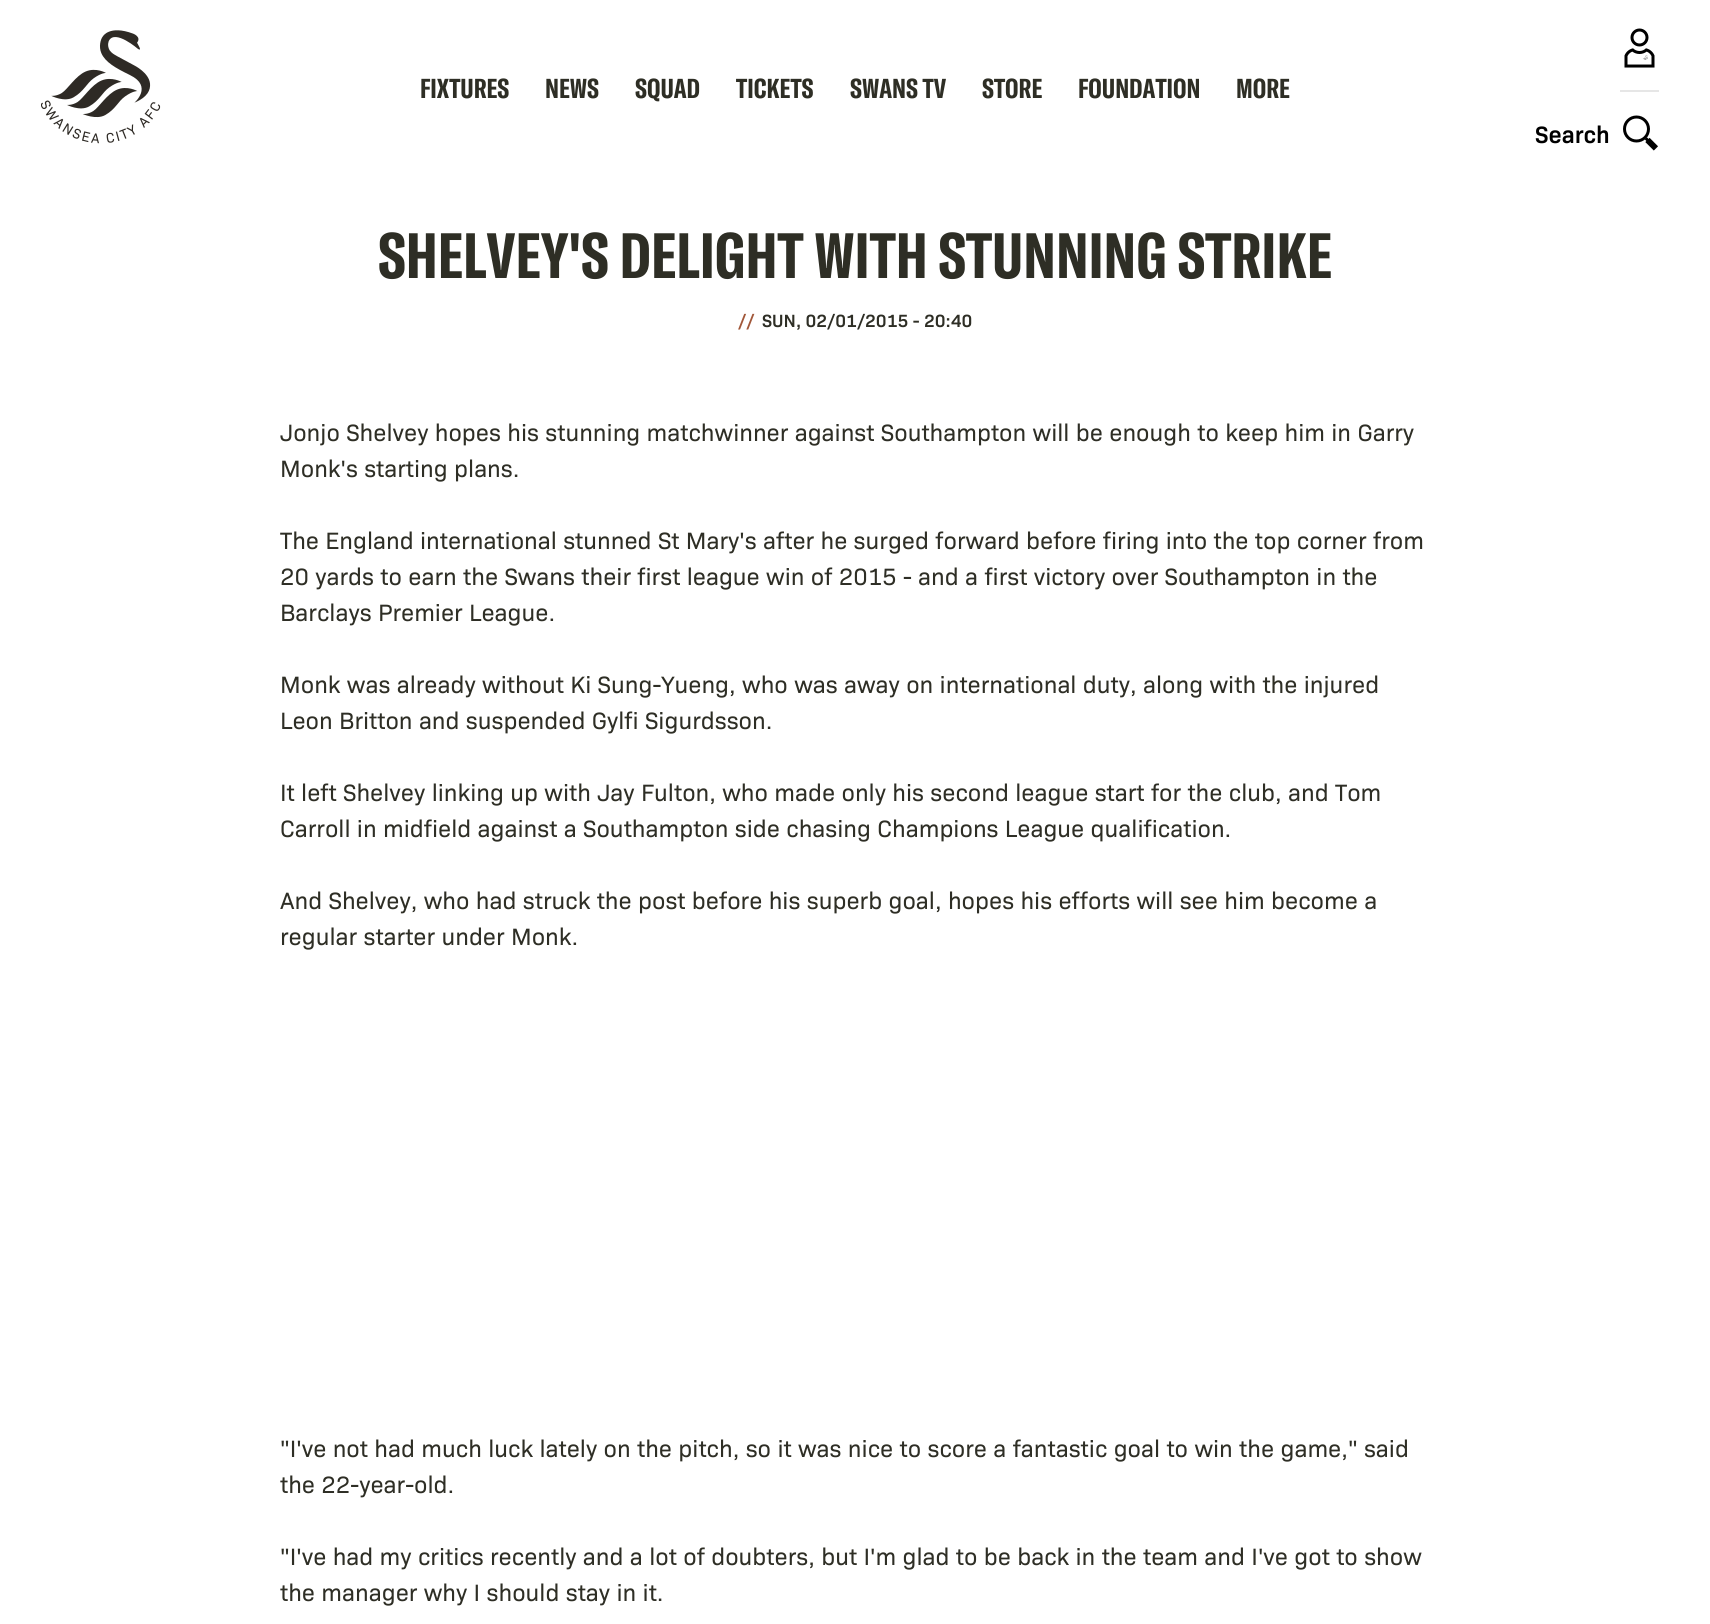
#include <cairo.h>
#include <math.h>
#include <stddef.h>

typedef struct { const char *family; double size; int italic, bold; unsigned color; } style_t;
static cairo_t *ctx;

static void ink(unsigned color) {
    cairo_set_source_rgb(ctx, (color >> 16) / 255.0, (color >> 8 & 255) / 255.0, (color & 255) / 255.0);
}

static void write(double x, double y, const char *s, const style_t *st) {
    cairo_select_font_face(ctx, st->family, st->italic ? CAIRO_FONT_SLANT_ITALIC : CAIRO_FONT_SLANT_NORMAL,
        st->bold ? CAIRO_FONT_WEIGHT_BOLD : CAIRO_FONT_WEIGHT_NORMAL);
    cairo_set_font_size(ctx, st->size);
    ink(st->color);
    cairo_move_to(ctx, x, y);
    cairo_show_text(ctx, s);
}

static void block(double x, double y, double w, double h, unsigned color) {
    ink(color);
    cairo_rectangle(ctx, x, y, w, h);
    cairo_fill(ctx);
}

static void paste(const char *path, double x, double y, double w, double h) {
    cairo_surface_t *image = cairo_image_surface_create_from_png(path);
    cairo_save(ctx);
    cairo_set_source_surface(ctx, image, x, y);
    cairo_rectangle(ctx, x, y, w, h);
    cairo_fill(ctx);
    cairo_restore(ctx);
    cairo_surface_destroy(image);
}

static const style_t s1 = {"GT America", 27, 0, 1, 0x2e2e25};
static const style_t s2 = {"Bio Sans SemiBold", 24, 0, 0, 0x000000};
static const style_t s3 = {"GT America", 63, 0, 1, 0x2e2e25};
static const style_t s4 = {"Bio Sans SemiBold", 18, 0, 0, 0xa15739};
static const style_t s5 = {"Bio Sans SemiBold", 18, 0, 0, 0x2e2e25};
static const style_t s6 = {"Bio Sans", 24, 0, 0, 0x2e2e25};

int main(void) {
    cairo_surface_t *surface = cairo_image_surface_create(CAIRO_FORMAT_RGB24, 1710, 1624);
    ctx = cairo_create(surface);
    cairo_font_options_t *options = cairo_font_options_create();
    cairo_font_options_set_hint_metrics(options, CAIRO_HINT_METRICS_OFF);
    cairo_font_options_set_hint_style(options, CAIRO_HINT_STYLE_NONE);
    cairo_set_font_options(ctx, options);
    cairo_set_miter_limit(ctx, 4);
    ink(0xffffff);
    cairo_paint(ctx);
    write(420, 98, "FIXTURES", &s1);
    write(545, 98, "NEWS", &s1);
    write(635, 98, "SQUAD", &s1);
    write(736, 98, "TICKETS", &s1);
    write(850, 98, "SWANS TV", &s1);
    write(982, 98, "STORE", &s1);
    write(1078, 98, "FOUNDATION", &s1);
    write(1236, 98, "MORE", &s1);
    paste("pic1.png", 41, 30, 120, 114);
    paste("pic2.png", 1624, 28, 31, 40);
    block(1620, 90, 39, 2, 0xe6e6e6);
    write(1535, 143, "Search", &s2);
    paste("pic3.png", 1623, 115, 35, 36);
    write(378, 278, "SHELVEY'S DELIGHT WITH STUNNING STRIKE", &s3);
    write(738, 327, "//", &s4);
    write(762, 327, "SUN, 02/01/2015 - 20:40", &s5);
    write(280, 441, "Jonjo Shelvey hopes his stunning matchwinner against Southampton will be enough to keep him in Garry", &s6);
    write(280, 477, "Monk's starting plans.", &s6);
    write(280, 549, "The England international stunned St Mary's after he surged forward before firing into the top corner from", &s6);
    write(280, 585, "20 yards to earn the Swans their first league win of 2015 - and a first victory over Southampton in the", &s6);
    write(280, 621, "Barclays Premier League.", &s6);
    write(280, 693, "Monk was already without Ki Sung-Yueng, who was away on international duty, along with the injured", &s6);
    write(280, 729, "Leon Britton and suspended Gylfi Sigurdsson.", &s6);
    write(280, 801, "It left Shelvey linking up with Jay Fulton, who made only his second league start for the club, and Tom", &s6);
    write(280, 837, "Carroll in midfield against a Southampton side chasing Champions League qualification.", &s6);
    write(280, 909, "And Shelvey, who had struck the post before his superb goal, hopes his efforts will see him become a", &s6);
    write(280, 945, "regular starter under Monk.", &s6);
    write(280, 1457, "\"I've not had much luck lately on the pitch, so it was nice to score a fantastic goal to win the game,\" said", &s6);
    write(280, 1493, "the 22-year-old.", &s6);
    write(280, 1565, "\"I've had my critics recently and a lot of doubters, but I'm glad to be back in the team and I've got to show", &s6);
    write(280, 1601, "the manager why I should stay in it.", &s6);
    cairo_surface_write_to_png(surface, "screenshot.png");
    cairo_font_options_destroy(options);
    cairo_destroy(ctx);
    cairo_surface_destroy(surface);
    return 0;
}
